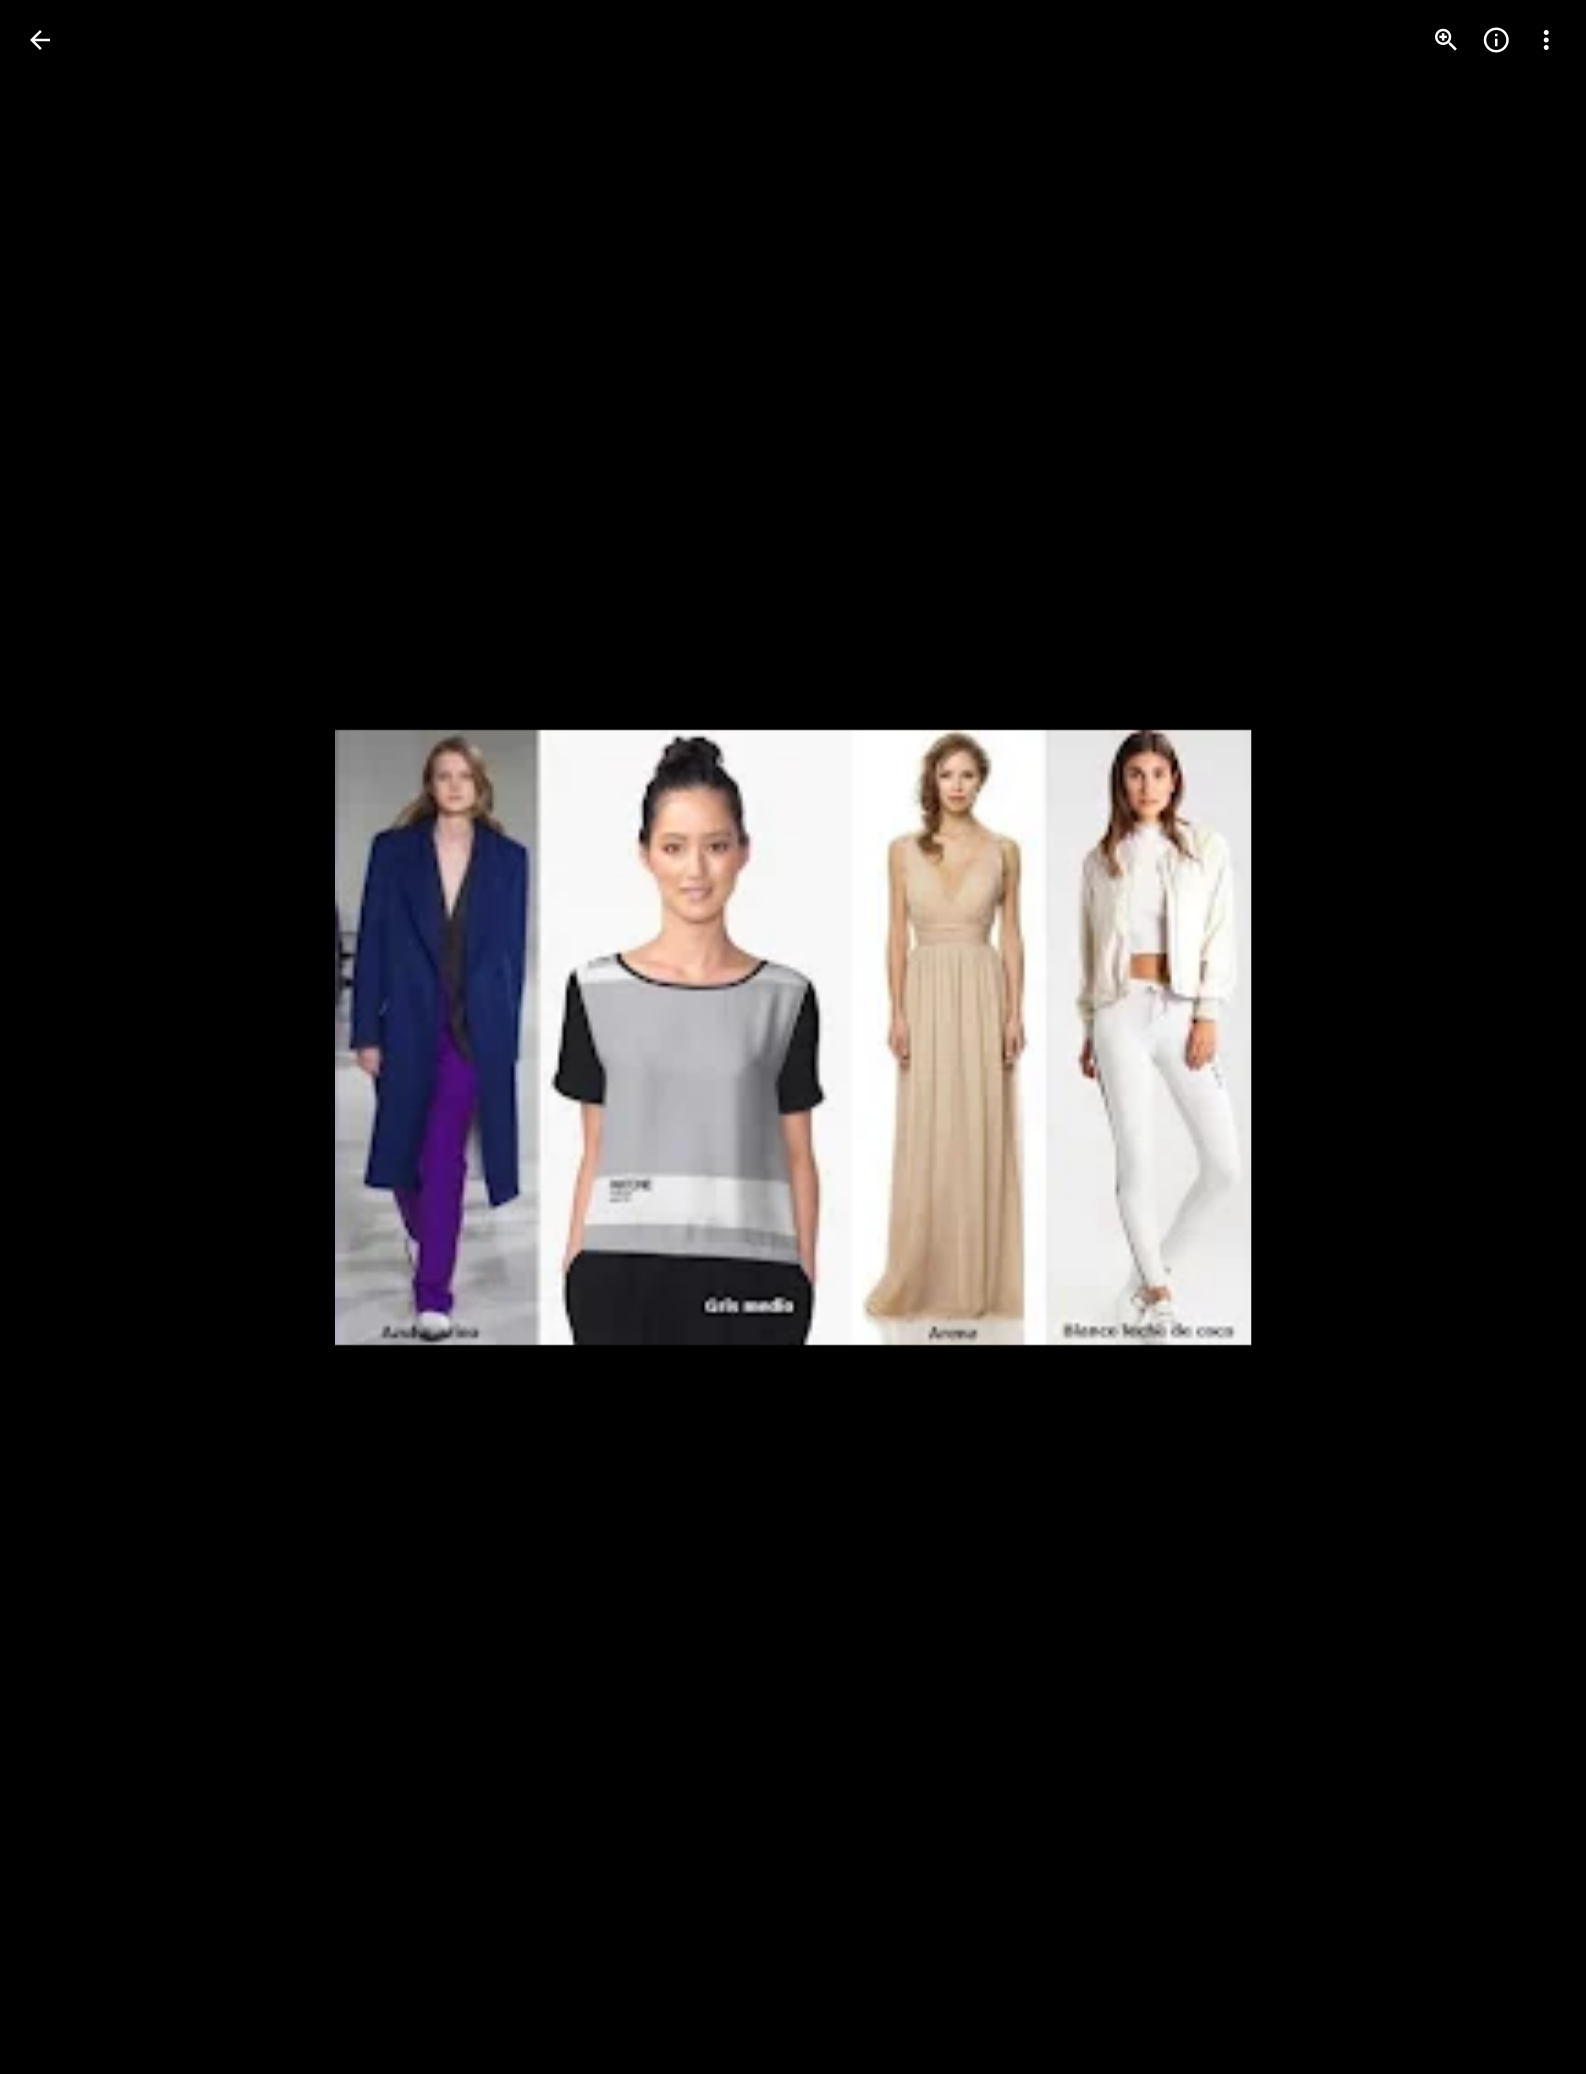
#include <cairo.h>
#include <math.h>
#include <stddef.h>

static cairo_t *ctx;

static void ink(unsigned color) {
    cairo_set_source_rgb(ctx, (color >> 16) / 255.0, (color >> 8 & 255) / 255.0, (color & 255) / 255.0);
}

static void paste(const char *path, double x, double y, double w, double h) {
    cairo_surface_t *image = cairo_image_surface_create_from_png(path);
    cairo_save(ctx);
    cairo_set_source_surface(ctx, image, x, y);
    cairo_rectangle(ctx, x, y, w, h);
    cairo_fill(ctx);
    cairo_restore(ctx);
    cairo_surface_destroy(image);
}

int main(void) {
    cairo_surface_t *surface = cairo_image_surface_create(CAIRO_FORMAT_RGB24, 1586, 2074);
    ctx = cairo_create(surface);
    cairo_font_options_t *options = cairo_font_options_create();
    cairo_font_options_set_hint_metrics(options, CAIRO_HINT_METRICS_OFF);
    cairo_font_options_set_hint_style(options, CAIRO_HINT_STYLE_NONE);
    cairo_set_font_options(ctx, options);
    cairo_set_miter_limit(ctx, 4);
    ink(0x000000);
    cairo_paint(ctx);
    paste("pic1.png", 30, 30, 20, 20);
    paste("pic2.png", 1435, 28, 22, 23);
    paste("pic3.png", 1483, 27, 26, 26);
    paste("pic4.png", 1543, 30, 6, 20);
    paste("pic5.png", 335, 729, 917, 617);
    cairo_surface_write_to_png(surface, "screenshot.png");
    cairo_font_options_destroy(options);
    cairo_destroy(ctx);
    cairo_surface_destroy(surface);
    return 0;
}
